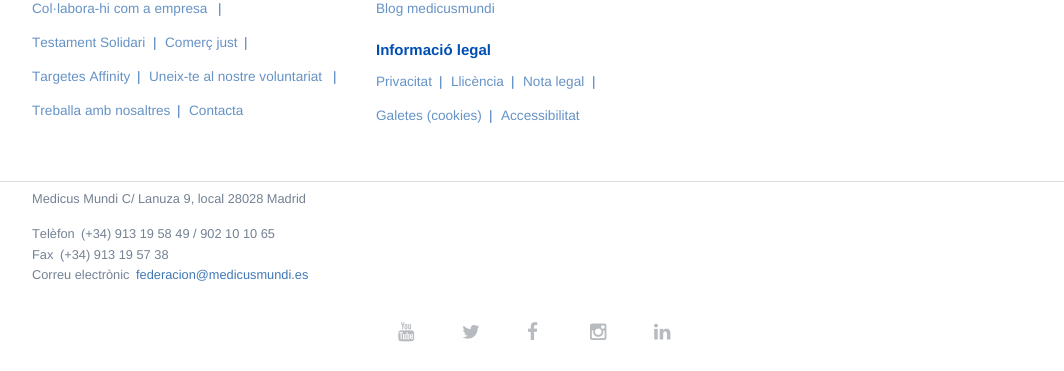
#include <cairo.h>
#include <math.h>
#include <stddef.h>

typedef struct { const char *family; double size; int italic, bold; unsigned color; } style_t;
static cairo_t *ctx;

static void ink(unsigned color) {
    cairo_set_source_rgb(ctx, (color >> 16) / 255.0, (color >> 8 & 255) / 255.0, (color & 255) / 255.0);
}

static void write(double x, double y, const char *s, const style_t *st) {
    cairo_select_font_face(ctx, st->family, st->italic ? CAIRO_FONT_SLANT_ITALIC : CAIRO_FONT_SLANT_NORMAL,
        st->bold ? CAIRO_FONT_WEIGHT_BOLD : CAIRO_FONT_WEIGHT_NORMAL);
    cairo_set_font_size(ctx, st->size);
    ink(st->color);
    cairo_move_to(ctx, x, y);
    cairo_show_text(ctx, s);
}

static void block(double x, double y, double w, double h, unsigned color) {
    ink(color);
    cairo_rectangle(ctx, x, y, w, h);
    cairo_fill(ctx);
}

static void paste(const char *path, double x, double y, double w, double h) {
    cairo_surface_t *image = cairo_image_surface_create_from_png(path);
    cairo_save(ctx);
    cairo_set_source_surface(ctx, image, x, y);
    cairo_rectangle(ctx, x, y, w, h);
    cairo_fill(ctx);
    cairo_restore(ctx);
    cairo_surface_destroy(image);
}

static const style_t s1 = {"Liberation Sans", 13.6, 0, 0, 0x6592c5};
static const style_t s2 = {"Liberation Sans", 13.6, 0, 0, 0x3e77b7};
static const style_t s3 = {"Liberation Sans", 15, 0, 1, 0x004eb2};
static const style_t s4 = {"Liberation Sans", 12.8, 0, 0, 0x738193};
static const style_t s5 = {"Liberation Sans", 12.8, 0, 0, 0x3e77b7};

int main(void) {
    cairo_surface_t *surface = cairo_image_surface_create(CAIRO_FORMAT_RGB24, 1064, 371);
    ctx = cairo_create(surface);
    cairo_font_options_t *options = cairo_font_options_create();
    cairo_font_options_set_hint_metrics(options, CAIRO_HINT_METRICS_OFF);
    cairo_font_options_set_hint_style(options, CAIRO_HINT_STYLE_NONE);
    cairo_set_font_options(ctx, options);
    cairo_set_miter_limit(ctx, 4);
    ink(0xffffff);
    cairo_paint(ctx);
    write(32, 13, "Col·labora-hi com a empresa", &s1);
    write(218, 13, "|", &s2);
    write(32, 47, "Testament Solidari", &s1);
    write(153, 47, "|", &s2);
    write(165, 47, "Comerç just", &s1);
    write(244, 47, "|", &s2);
    write(32, 81, "Targetes Affinity", &s1);
    write(137, 81, "|", &s2);
    write(149, 81, "Uneix-te al nostre voluntariat", &s1);
    write(333, 81, "|", &s2);
    write(32, 115, "Treballa amb nosaltres", &s1);
    write(177, 115, "|", &s2);
    write(189, 115, "Contacta", &s1);
    write(376, 13, "Blog medicusmundi", &s1);
    write(376, 55, "Informació legal", &s3);
    write(376, 86, "Privacitat", &s1);
    write(439, 86, "|", &s2);
    write(451, 86, "Llicència", &s1);
    write(511, 86, "|", &s2);
    write(523, 86, "Nota legal", &s1);
    write(592, 86, "|", &s2);
    write(376, 120, "Galetes (cookies)", &s1);
    write(489, 120, "|", &s2);
    write(501, 120, "Accessibilitat", &s1);
    block(0, 181, 1064, 1, 0xdbdddf);
    write(32, 203, "Medicus Mundi C/ Lanuza 9, local 28028 Madrid", &s4);
    write(32, 238, "Telèfon", &s4);
    write(81, 238, "(+34) 913 19 58 49 / 902 10 10 65", &s4);
    write(32, 259, "Fax", &s4);
    write(60, 259, "(+34) 913 19 57 38", &s4);
    write(32, 279, "Correu electrònic", &s4);
    write(136, 279, "federacion@medicusmundi.es", &s5);
    paste("pic1.png", 398, 322, 17, 20);
    paste("pic2.png", 462, 325, 17, 14);
    paste("pic3.png", 528, 322, 10, 18);
    paste("pic4.png", 590, 323, 17, 17);
    paste("pic5.png", 654, 323, 17, 17);
    cairo_surface_write_to_png(surface, "screenshot.png");
    cairo_font_options_destroy(options);
    cairo_destroy(ctx);
    cairo_surface_destroy(surface);
    return 0;
}
